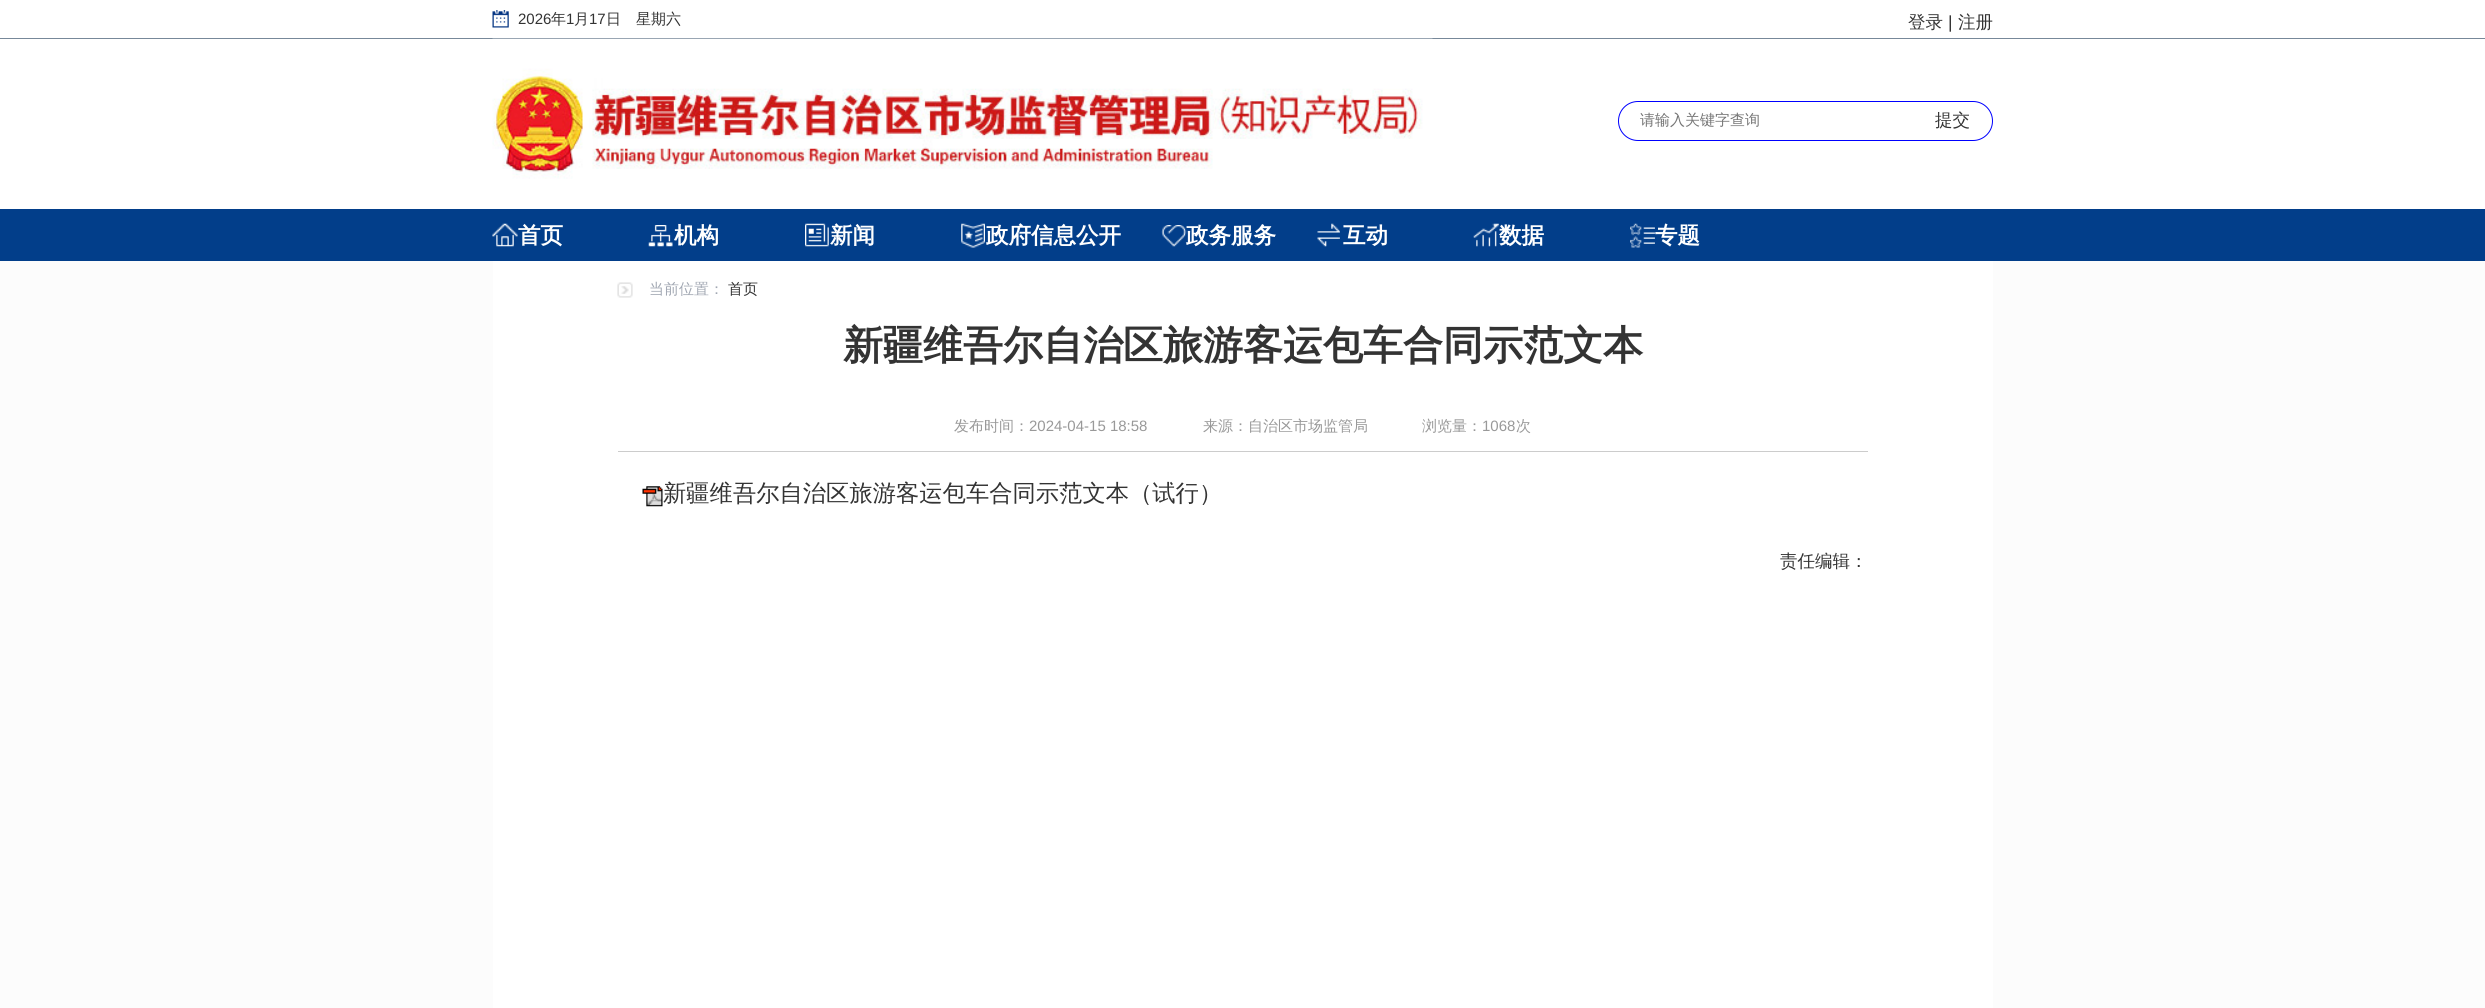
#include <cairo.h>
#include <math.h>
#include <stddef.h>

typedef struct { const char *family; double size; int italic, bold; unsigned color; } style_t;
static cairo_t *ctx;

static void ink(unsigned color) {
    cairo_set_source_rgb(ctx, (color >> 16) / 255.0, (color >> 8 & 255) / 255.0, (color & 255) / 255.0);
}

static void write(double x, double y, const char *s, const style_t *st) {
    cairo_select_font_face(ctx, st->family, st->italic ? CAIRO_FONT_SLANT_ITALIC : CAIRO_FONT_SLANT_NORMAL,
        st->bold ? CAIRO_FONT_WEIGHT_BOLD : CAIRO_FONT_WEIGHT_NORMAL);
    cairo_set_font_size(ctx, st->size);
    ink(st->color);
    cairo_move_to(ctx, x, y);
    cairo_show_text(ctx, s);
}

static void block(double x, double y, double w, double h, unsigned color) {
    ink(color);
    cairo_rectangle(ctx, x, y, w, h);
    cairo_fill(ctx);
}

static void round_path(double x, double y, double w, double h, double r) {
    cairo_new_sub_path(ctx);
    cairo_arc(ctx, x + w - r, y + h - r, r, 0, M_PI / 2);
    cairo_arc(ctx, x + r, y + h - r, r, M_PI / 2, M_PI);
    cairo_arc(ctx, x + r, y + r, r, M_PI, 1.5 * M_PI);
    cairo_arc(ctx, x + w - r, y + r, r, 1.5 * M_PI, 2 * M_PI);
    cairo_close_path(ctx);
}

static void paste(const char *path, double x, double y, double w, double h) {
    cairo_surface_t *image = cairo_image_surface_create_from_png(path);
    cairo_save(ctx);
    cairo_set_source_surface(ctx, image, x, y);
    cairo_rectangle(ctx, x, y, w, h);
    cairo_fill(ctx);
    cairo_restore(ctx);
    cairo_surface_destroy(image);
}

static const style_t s1 = {"Liberation Sans", 15, 0, 0, 0x333333};
static const style_t s2 = {"WenQuanYi Zen Hei Medium", 15, 0, 0, 0x333333};
static const style_t s3 = {"WenQuanYi Zen Hei Medium", 17.5, 0, 0, 0x333333};
static const style_t s4 = {"Liberation Sans", 17.5, 0, 0, 0x333333};
static const style_t s5 = {"WenQuanYi Zen Hei Medium", 15, 0, 0, 0x757575};
static const style_t s6 = {"WenQuanYi Zen Hei", 22.5, 0, 1, 0xffffff};
static const style_t s7 = {"WenQuanYi Zen Hei Medium", 15, 0, 0, 0xa1a7b2};
static const style_t s8 = {"WenQuanYi Zen Hei", 40, 0, 1, 0x333333};
static const style_t s9 = {"WenQuanYi Zen Hei Medium", 15, 0, 0, 0x999999};
static const style_t s10 = {"Liberation Sans", 15, 0, 0, 0x999999};
static const style_t s11 = {"WenQuanYi Zen Hei Medium", 23.3, 0, 0, 0x333333};

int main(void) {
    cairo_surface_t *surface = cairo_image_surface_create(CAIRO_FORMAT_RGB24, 2485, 1008);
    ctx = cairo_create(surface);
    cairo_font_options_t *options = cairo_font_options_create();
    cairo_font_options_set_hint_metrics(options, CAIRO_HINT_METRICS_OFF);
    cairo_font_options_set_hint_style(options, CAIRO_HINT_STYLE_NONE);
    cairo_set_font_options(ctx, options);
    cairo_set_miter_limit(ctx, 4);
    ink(0xfcfcfc);
    cairo_paint(ctx);
    block(0, 0, 2485, 209, 0xffffff);
    block(0, 38, 2485, 1, 0x778899);
    paste("pic1.png", 492, 10, 17, 18);
    write(518, 24, "2026", &s1);
    write(551, 24, "年", &s2);
    write(566, 24, "1", &s1);
    write(574, 24, "月", &s2);
    write(589, 24, "17", &s1);
    write(606, 24, "日", &s2);
    write(636, 24, "星期六", &s2);
    write(1908, 28, "登录", &s3);
    write(1948, 28, "|", &s4);
    write(1958, 28, "注册", &s3);
    paste("pic2.png", 492, 38, 941, 141);
    round_path(1618.5, 101.5, 374, 39, 19.5);
    ink(0x0000ff);
    cairo_set_line_width(ctx, 1);
    cairo_stroke(ctx);
    write(1640, 125, "请输入关键字查询", &s5);
    write(1935, 126, "提交", &s3);
    block(0, 209, 2485, 52, 0x023e8a);
    paste("pic3.png", 492, 223, 26, 24);
    write(518, 243, "首页", &s6);
    paste("pic4.png", 648, 225, 25, 22);
    write(674, 243, "机构", &s6);
    paste("pic5.png", 805, 223, 24, 24);
    write(830, 243, "新闻", &s6);
    paste("pic6.png", 961, 223, 24, 25);
    write(986, 243, "政府信息公开", &s6);
    paste("pic7.png", 1161, 225, 26, 22);
    write(1186, 243, "政务服务", &s6);
    paste("pic8.png", 1317, 223, 23, 24);
    write(1343, 243, "互动", &s6);
    paste("pic9.png", 1473, 223, 26, 24);
    write(1499, 243, "数据", &s6);
    paste("pic10.png", 1630, 223, 25, 25);
    write(1655, 243, "专题", &s6);
    block(493, 261, 1500, 747, 0xffffff);
    paste("pic11.png", 617, 282, 16, 16);
    write(649, 294, "当前位置：", &s7);
    write(728, 294, "首页", &s2);
    write(843, 359, "新疆维吾尔自治区旅游客运包车合同示范文本", &s8);
    block(618, 451, 1250, 1, 0xcccccc);
    write(954, 431, "发布时间：", &s9);
    write(1029, 431, "2024-04-15 18:58", &s10);
    write(1203, 431, "来源：自治区市场监管局", &s9);
    write(1422, 431, "浏览量：", &s9);
    write(1482, 431, "1068", &s10);
    write(1516, 431, "次", &s9);
    paste("pic12.png", 642, 486, 21, 21);
    write(663, 501, "新疆维吾尔自治区旅游客运包车合同示范文本（试行）", &s11);
    write(1780, 567, "责任编辑：", &s3);
    cairo_surface_write_to_png(surface, "screenshot.png");
    cairo_font_options_destroy(options);
    cairo_destroy(ctx);
    cairo_surface_destroy(surface);
    return 0;
}
